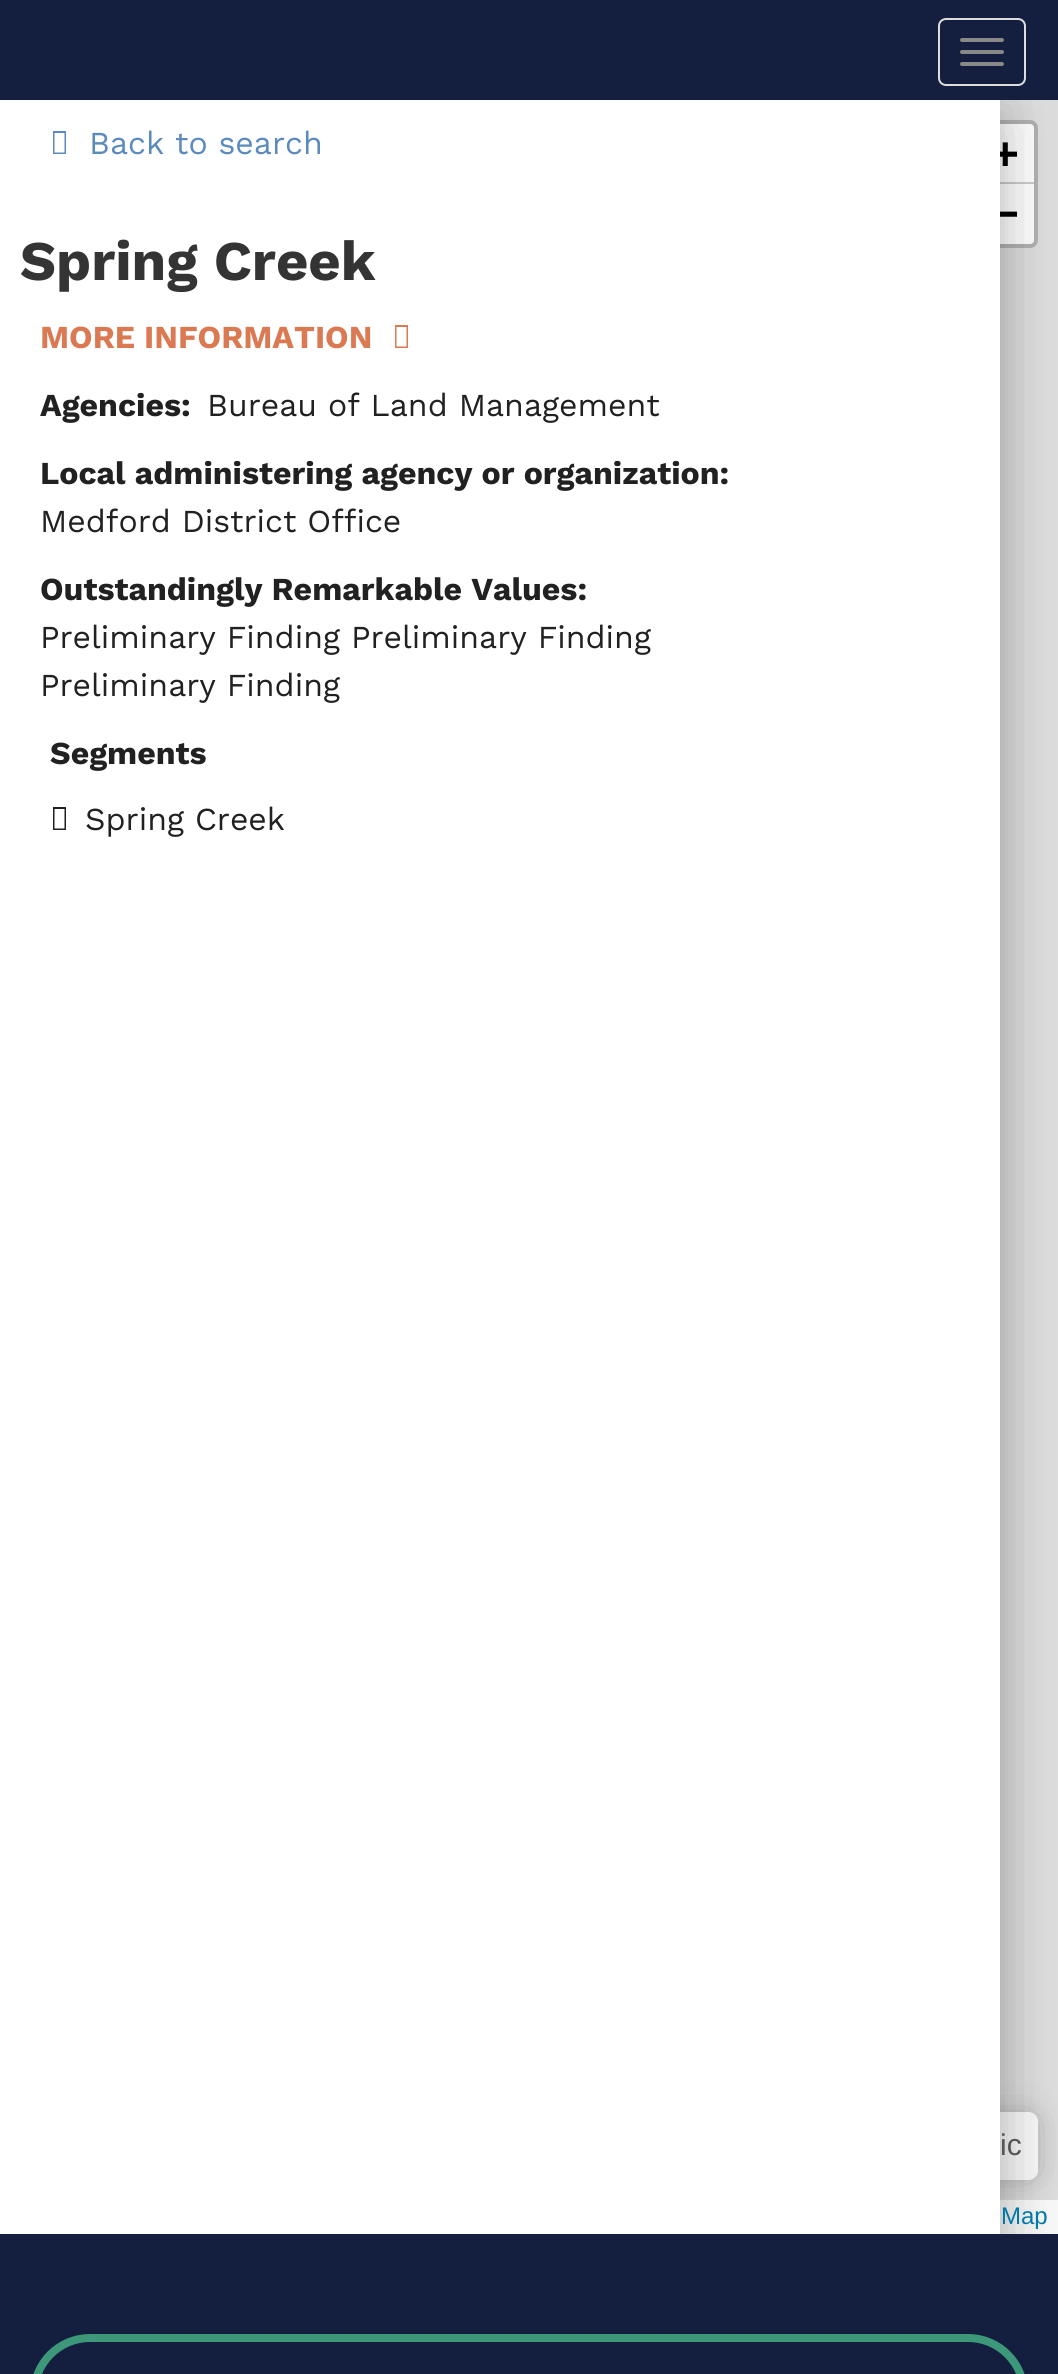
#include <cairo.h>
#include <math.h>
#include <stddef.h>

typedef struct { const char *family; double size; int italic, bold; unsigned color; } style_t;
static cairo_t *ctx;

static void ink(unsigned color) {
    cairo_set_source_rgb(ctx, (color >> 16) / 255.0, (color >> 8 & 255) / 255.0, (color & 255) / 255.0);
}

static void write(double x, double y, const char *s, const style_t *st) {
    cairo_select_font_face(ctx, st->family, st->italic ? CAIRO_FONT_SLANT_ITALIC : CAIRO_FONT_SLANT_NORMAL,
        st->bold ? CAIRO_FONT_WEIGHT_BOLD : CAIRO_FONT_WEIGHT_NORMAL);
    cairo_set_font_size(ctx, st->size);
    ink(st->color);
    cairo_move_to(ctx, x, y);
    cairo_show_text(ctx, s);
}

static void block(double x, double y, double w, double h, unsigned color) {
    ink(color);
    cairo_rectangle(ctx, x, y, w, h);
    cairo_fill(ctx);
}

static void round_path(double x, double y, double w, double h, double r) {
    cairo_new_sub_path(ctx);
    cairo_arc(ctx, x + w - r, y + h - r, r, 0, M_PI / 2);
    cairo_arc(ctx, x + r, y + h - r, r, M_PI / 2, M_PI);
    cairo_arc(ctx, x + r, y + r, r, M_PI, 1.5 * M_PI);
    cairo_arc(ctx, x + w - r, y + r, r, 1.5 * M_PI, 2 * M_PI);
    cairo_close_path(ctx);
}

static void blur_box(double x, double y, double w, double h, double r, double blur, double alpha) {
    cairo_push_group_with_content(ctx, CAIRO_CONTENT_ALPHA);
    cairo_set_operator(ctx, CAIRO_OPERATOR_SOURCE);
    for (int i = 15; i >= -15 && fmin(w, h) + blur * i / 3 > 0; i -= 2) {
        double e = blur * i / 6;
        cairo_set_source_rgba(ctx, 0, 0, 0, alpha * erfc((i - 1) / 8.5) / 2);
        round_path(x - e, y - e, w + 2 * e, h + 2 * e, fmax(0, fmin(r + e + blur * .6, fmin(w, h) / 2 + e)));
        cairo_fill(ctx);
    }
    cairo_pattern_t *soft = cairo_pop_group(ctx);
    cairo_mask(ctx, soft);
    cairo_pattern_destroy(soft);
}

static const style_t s1 = {"DejaVu Sans Mono", 44, 0, 1, 0x000000};
static const style_t s2 = {"Work Sans", 32, 0, 0, 0x5b8abe};
static const style_t s3 = {"Work Sans", 56, 0, 1, 0x343434};
static const style_t s4 = {"Work Sans", 32, 0, 1, 0xdb7952};
static const style_t s5 = {"Work Sans", 32, 0, 1, 0x212121};
static const style_t s6 = {"Work Sans", 32, 0, 0, 0x212121};
static const style_t s7 = {"Liberation Sans", 30, 0, 0, 0x555555};
static const style_t s8 = {"Liberation Sans", 24, 0, 0, 0x0078a8};

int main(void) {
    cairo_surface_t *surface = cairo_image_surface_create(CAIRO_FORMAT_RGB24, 1058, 2374);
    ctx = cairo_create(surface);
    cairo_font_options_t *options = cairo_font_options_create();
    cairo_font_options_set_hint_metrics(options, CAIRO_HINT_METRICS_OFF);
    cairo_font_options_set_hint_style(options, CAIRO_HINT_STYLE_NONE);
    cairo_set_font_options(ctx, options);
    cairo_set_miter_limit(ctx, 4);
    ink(0x141f3f);
    cairo_paint(ctx);
    round_path(939, 19, 86, 66, 7);
    ink(0xdddddd);
    cairo_stroke(ctx);
    ink(0x888888);
    round_path(960, 38, 44, 4, 2);
    cairo_fill(ctx);
    round_path(960, 50, 44, 4, 2);
    cairo_fill(ctx);
    round_path(960, 62, 44, 4, 2);
    cairo_fill(ctx);
    block(1000, 100, 58, 2134, 0xdddddd);
    round_path(972, 122, 64, 124, 6);
    ink(0xb1b1b1);
    cairo_set_line_width(ctx, 4);
    cairo_stroke(ctx);
    ink(0xffffff);
    cairo_new_path(ctx);
    cairo_move_to(ctx, 978, 124);
    cairo_line_to(ctx, 1030, 124);
    cairo_curve_to(ctx, 1032, 124, 1034, 126, 1034, 128);
    cairo_line_to(ctx, 1034, 184);
    cairo_line_to(ctx, 974, 184);
    cairo_line_to(ctx, 974, 128);
    cairo_curve_to(ctx, 974, 126, 976, 124, 978, 124);
    cairo_close_path(ctx);
    cairo_fill(ctx);
    block(1000, 182, 34, 2, 0xcccccc);
    ink(0xffffff);
    cairo_new_path(ctx);
    cairo_move_to(ctx, 974, 184);
    cairo_line_to(ctx, 1034, 184);
    cairo_line_to(ctx, 1034, 240);
    cairo_curve_to(ctx, 1034, 242, 1032, 244, 1030, 244);
    cairo_line_to(ctx, 978, 244);
    cairo_curve_to(ctx, 976, 244, 974, 242, 974, 240);
    cairo_close_path(ctx);
    cairo_fill(ctx);
    cairo_save(ctx);
    cairo_set_fill_rule(ctx, CAIRO_FILL_RULE_EVEN_ODD);
    cairo_new_path(ctx);
    cairo_move_to(ctx, 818, 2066);
    cairo_line_to(ctx, 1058, 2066);
    cairo_line_to(ctx, 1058, 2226);
    cairo_line_to(ctx, 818, 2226);
    cairo_close_path(ctx);
    cairo_move_to(ctx, 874, 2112);
    cairo_line_to(ctx, 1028, 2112);
    cairo_curve_to(ctx, 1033.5, 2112, 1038, 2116.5, 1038, 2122);
    cairo_line_to(ctx, 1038, 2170);
    cairo_curve_to(ctx, 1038, 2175.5, 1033.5, 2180, 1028, 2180);
    cairo_line_to(ctx, 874, 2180);
    cairo_curve_to(ctx, 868.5, 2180, 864, 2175.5, 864, 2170);
    cairo_line_to(ctx, 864, 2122);
    cairo_curve_to(ctx, 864, 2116.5, 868.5, 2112, 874, 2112);
    cairo_close_path(ctx);
    cairo_clip(ctx);
    ink(0x000000);
    blur_box(864, 2112, 174, 68, 10, 15, 0.2);
    cairo_restore(ctx);
    cairo_set_source_rgba(ctx, 1, 1, 1, 0.8);
    round_path(864, 2112, 174, 68, 10);
    cairo_fill(ctx);
    cairo_rectangle(ctx, 1000, 2200, 58, 34);
    cairo_fill(ctx);
    round_path(34, 2338, 990, 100, 56);
    ink(0x3c9879);
    cairo_set_line_width(ctx, 8);
    cairo_stroke(ctx);
    cairo_save(ctx);
    cairo_rectangle(ctx, 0, 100, 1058, 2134);
    cairo_clip(ctx);
    ink(0x000000);
    blur_box(-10, 102, 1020, 2154, 0, 30, 0.12);
    blur_box(-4, 128, 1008, 2142, 0, 24, 0.14);
    blur_box(10, 126, 980, 2114, 0, 10, 0.2);
    cairo_restore(ctx);
    write(992, 168, "+", &s1);
    write(992, 228, "−", &s1);
    block(0, 100, 1000, 2134, 0xffffff);
    ink(0x5b8abe);
    cairo_new_path(ctx);
    cairo_move_to(ctx, 53, 154);
    cairo_line_to(ctx, 53, 131);
    cairo_line_to(ctx, 66, 131);
    cairo_line_to(ctx, 66, 154);
    cairo_close_path(ctx);
    cairo_move_to(ctx, 54.5, 152.5);
    cairo_line_to(ctx, 64.5, 152.5);
    cairo_line_to(ctx, 64.5, 133);
    cairo_line_to(ctx, 54.5, 133);
    cairo_close_path(ctx);
    cairo_fill(ctx);
    write(89, 154, "Back to search", &s2);
    write(20, 280, "Spring Creek", &s3);
    write(40, 348, "MORE INFORMATION", &s4);
    cairo_new_path(ctx);
    cairo_move_to(ctx, 395, 348);
    cairo_line_to(ctx, 395, 325);
    cairo_line_to(ctx, 408, 325);
    cairo_line_to(ctx, 408, 348);
    cairo_close_path(ctx);
    cairo_move_to(ctx, 396.5, 346.5);
    cairo_line_to(ctx, 406.5, 346.5);
    cairo_line_to(ctx, 406.5, 327);
    cairo_line_to(ctx, 396.5, 327);
    cairo_close_path(ctx);
    cairo_fill(ctx);
    write(40, 416, "Agencies:", &s5);
    write(207, 416, "Bureau of Land Management", &s6);
    write(40, 484, "Local administering agency or organization:", &s5);
    write(40, 532, "Medford District Office", &s6);
    write(40, 600, "Outstandingly Remarkable Values:", &s5);
    write(40, 648, "Preliminary Finding Preliminary Finding", &s6);
    write(40, 696, "Preliminary Finding", &s6);
    write(50, 764, "Segments", &s5);
    cairo_new_path(ctx);
    cairo_move_to(ctx, 53, 830);
    cairo_line_to(ctx, 53, 807);
    cairo_line_to(ctx, 66, 807);
    cairo_line_to(ctx, 66, 830);
    cairo_close_path(ctx);
    cairo_move_to(ctx, 54.5, 828.5);
    cairo_line_to(ctx, 64.5, 828.5);
    cairo_line_to(ctx, 64.5, 809);
    cairo_line_to(ctx, 54.5, 809);
    cairo_close_path(ctx);
    cairo_fill(ctx);
    write(85, 830, "Spring Creek", &s6);
    write(1000, 2155, "ic", &s7);
    write(1001, 2224, "Map", &s8);
    cairo_surface_write_to_png(surface, "screenshot.png");
    cairo_font_options_destroy(options);
    cairo_destroy(ctx);
    cairo_surface_destroy(surface);
    return 0;
}
